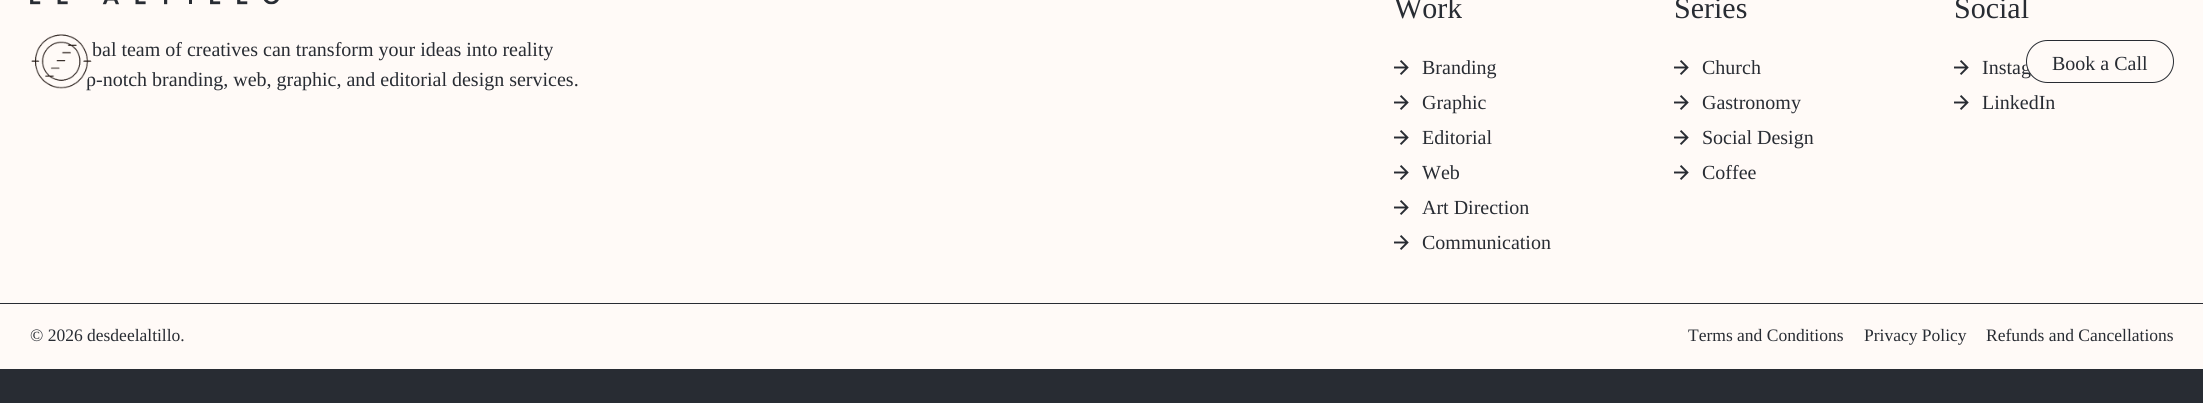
#include <cairo.h>
#include <math.h>
#include <stddef.h>

typedef struct { const char *family; double size; int italic, bold; unsigned color; } style_t;
static cairo_t *ctx;

static void ink(unsigned color) {
    cairo_set_source_rgb(ctx, (color >> 16) / 255.0, (color >> 8 & 255) / 255.0, (color & 255) / 255.0);
}

static void write(double x, double y, const char *s, const style_t *st) {
    cairo_select_font_face(ctx, st->family, st->italic ? CAIRO_FONT_SLANT_ITALIC : CAIRO_FONT_SLANT_NORMAL,
        st->bold ? CAIRO_FONT_WEIGHT_BOLD : CAIRO_FONT_WEIGHT_NORMAL);
    cairo_set_font_size(ctx, st->size);
    ink(st->color);
    cairo_move_to(ctx, x, y);
    cairo_show_text(ctx, s);
}

static void block(double x, double y, double w, double h, unsigned color) {
    ink(color);
    cairo_rectangle(ctx, x, y, w, h);
    cairo_fill(ctx);
}

static void round_path(double x, double y, double w, double h, double r) {
    cairo_new_sub_path(ctx);
    cairo_arc(ctx, x + w - r, y + h - r, r, 0, M_PI / 2);
    cairo_arc(ctx, x + r, y + h - r, r, M_PI / 2, M_PI);
    cairo_arc(ctx, x + r, y + r, r, M_PI, 1.5 * M_PI);
    cairo_arc(ctx, x + w - r, y + r, r, 1.5 * M_PI, 2 * M_PI);
    cairo_close_path(ctx);
}

static void paste(const char *path, double x, double y, double w, double h) {
    cairo_surface_t *image = cairo_image_surface_create_from_png(path);
    cairo_save(ctx);
    cairo_set_source_surface(ctx, image, x, y);
    cairo_rectangle(ctx, x, y, w, h);
    cairo_fill(ctx);
    cairo_restore(ctx);
    cairo_surface_destroy(image);
}

static const style_t s1 = {"Liberation Serif", 20, 0, 0, 0x282c33};
static const style_t s2 = {"Liberation Serif", 30, 0, 0, 0x282c33};
static const style_t s3 = {"Liberation Serif", 17.5, 0, 0, 0x282c33};

int main(void) {
    cairo_surface_t *surface = cairo_image_surface_create(CAIRO_FORMAT_RGB24, 2203, 403);
    ctx = cairo_create(surface);
    cairo_font_options_t *options = cairo_font_options_create();
    cairo_font_options_set_hint_metrics(options, CAIRO_HINT_METRICS_OFF);
    cairo_font_options_set_hint_style(options, CAIRO_HINT_STYLE_NONE);
    cairo_set_font_options(ctx, options);
    cairo_set_miter_limit(ctx, 4);
    ink(0xfffaf7);
    cairo_paint(ctx);
    paste("pic1.png", 30, 0, 249, 5);
    write(92, 56, "bal team of creatives can transform your ideas into reality", &s1);
    write(86, 86, "p-notch branding, web, graphic, and editorial design services.", &s1);
    write(1394, 18, "Work", &s2);
    paste("pic2.png", 1394, 60, 15, 15);
    write(1422, 74, "Branding", &s1);
    paste("pic2.png", 1394, 95, 15, 15);
    write(1422, 109, "Graphic", &s1);
    paste("pic2.png", 1394, 130, 15, 15);
    write(1422, 144, "Editorial", &s1);
    paste("pic2.png", 1394, 165, 15, 15);
    write(1422, 179, "Web", &s1);
    paste("pic2.png", 1394, 200, 15, 15);
    write(1422, 214, "Art Direction", &s1);
    paste("pic2.png", 1394, 235, 15, 15);
    write(1422, 249, "Communication", &s1);
    write(1674, 18, "Series", &s2);
    paste("pic2.png", 1674, 60, 15, 15);
    write(1702, 74, "Church", &s1);
    paste("pic2.png", 1674, 95, 15, 15);
    write(1702, 109, "Gastronomy", &s1);
    paste("pic2.png", 1674, 130, 15, 15);
    write(1702, 144, "Social Design", &s1);
    paste("pic2.png", 1674, 165, 15, 15);
    write(1702, 179, "Coffee", &s1);
    write(1954, 18, "Social", &s2);
    paste("pic2.png", 1954, 60, 15, 15);
    write(1982, 74, "Instag", &s1);
    paste("pic2.png", 1954, 95, 15, 15);
    write(1982, 109, "LinkedIn", &s1);
    block(0, 303, 2203, 1, 0x282c33);
    write(30, 341, "© 2026 desdeelaltillo.", &s3);
    write(1688, 341, "Terms and Conditions", &s3);
    write(1864, 341, "Privacy Policy", &s3);
    write(1986, 341, "Refunds and Cancellations", &s3);
    ink(0xfffaf7);
    cairo_new_path(ctx);
    cairo_arc(ctx, 61.5, 61.5, 31.5, 0, 2 * M_PI);
    cairo_fill(ctx);
    paste("pic3.png", 31, 34, 61, 55);
    round_path(2026.5, 40.5, 147, 42, 21);
    cairo_fill_preserve(ctx);
    ink(0x282c33);
    cairo_set_line_width(ctx, 1);
    cairo_stroke(ctx);
    write(2052, 70, "Book a Call", &s1);
    block(0, 369, 2203, 34, 0x282c33);
    cairo_surface_write_to_png(surface, "screenshot.png");
    cairo_font_options_destroy(options);
    cairo_destroy(ctx);
    cairo_surface_destroy(surface);
    return 0;
}
